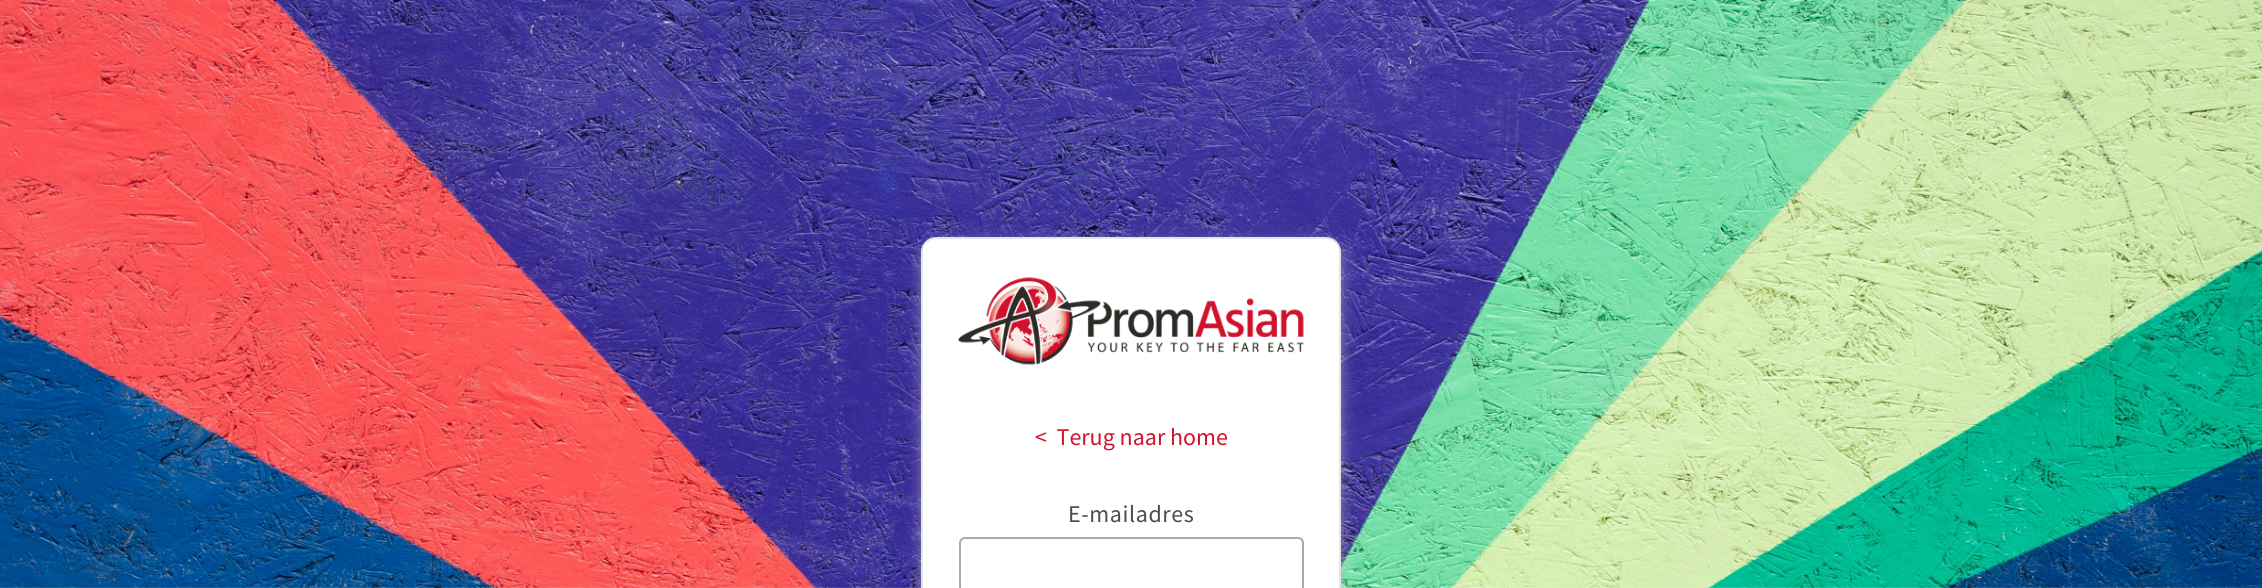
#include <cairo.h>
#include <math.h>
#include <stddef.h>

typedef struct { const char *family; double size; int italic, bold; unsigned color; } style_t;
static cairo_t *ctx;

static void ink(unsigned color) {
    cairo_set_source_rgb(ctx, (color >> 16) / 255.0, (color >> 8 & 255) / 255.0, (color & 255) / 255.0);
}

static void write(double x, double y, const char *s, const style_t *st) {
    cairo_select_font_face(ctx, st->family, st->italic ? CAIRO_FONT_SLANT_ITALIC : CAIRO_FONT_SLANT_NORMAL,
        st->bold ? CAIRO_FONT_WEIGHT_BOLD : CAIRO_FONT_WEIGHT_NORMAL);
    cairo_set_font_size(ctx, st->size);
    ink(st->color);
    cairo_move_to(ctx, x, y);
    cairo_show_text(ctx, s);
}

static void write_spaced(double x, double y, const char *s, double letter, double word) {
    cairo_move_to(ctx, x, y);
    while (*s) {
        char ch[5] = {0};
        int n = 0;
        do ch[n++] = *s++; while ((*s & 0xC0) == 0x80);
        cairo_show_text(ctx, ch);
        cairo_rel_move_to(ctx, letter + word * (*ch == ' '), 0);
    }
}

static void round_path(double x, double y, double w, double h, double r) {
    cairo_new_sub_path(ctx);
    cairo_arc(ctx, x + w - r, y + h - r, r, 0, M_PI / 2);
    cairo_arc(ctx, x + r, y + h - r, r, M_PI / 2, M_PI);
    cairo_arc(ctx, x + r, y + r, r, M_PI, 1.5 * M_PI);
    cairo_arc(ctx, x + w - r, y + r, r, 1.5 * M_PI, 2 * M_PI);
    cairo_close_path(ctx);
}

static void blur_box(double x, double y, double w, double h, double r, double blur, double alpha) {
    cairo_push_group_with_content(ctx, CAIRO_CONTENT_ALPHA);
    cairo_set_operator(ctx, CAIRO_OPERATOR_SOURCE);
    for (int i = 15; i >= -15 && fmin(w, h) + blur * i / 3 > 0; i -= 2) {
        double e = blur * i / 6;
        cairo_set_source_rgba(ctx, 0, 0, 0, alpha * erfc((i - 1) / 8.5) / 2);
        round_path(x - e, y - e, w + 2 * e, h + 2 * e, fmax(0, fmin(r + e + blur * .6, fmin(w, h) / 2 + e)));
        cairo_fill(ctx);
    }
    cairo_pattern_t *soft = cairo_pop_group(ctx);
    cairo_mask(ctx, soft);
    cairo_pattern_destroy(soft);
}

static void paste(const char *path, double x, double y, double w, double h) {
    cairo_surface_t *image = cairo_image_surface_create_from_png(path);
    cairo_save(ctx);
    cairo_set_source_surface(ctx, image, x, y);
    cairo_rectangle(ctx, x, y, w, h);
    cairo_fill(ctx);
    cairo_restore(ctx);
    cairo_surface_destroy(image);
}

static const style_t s1 = {"Source Sans Pro", 24, 0, 0, 0xd1132f};

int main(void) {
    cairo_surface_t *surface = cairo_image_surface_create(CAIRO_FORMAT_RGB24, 2262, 588);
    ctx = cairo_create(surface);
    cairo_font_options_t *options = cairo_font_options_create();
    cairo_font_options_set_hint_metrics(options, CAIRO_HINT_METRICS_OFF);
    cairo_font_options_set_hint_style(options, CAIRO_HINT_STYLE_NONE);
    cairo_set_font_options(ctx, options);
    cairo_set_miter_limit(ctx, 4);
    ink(0xffffff);
    cairo_paint(ctx);
    paste("pic1.png", 0, 0, 2262, 588);
    ink(0xc8c8c8);
    blur_box(923, 245, 417, 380, 14, 7.5, 0.7);
    ink(0xffffff);
    round_path(922, 238, 418, 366, 14);
    cairo_fill_preserve(ctx);
    ink(0xe5e5e5);
    cairo_stroke(ctx);
    paste("pic2.png", 958, 277, 346, 88);
    write(1035, 445, "<  Terug naar home", &s1);
    ink(0x4d4d4d);
    write_spaced(1068, 522, "E-mailadres", 0.6, 0);
    round_path(960, 538, 343, 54, 5);
    ink(0xaaaaaa);
    cairo_stroke(ctx);
    cairo_surface_write_to_png(surface, "screenshot.png");
    cairo_font_options_destroy(options);
    cairo_destroy(ctx);
    cairo_surface_destroy(surface);
    return 0;
}
